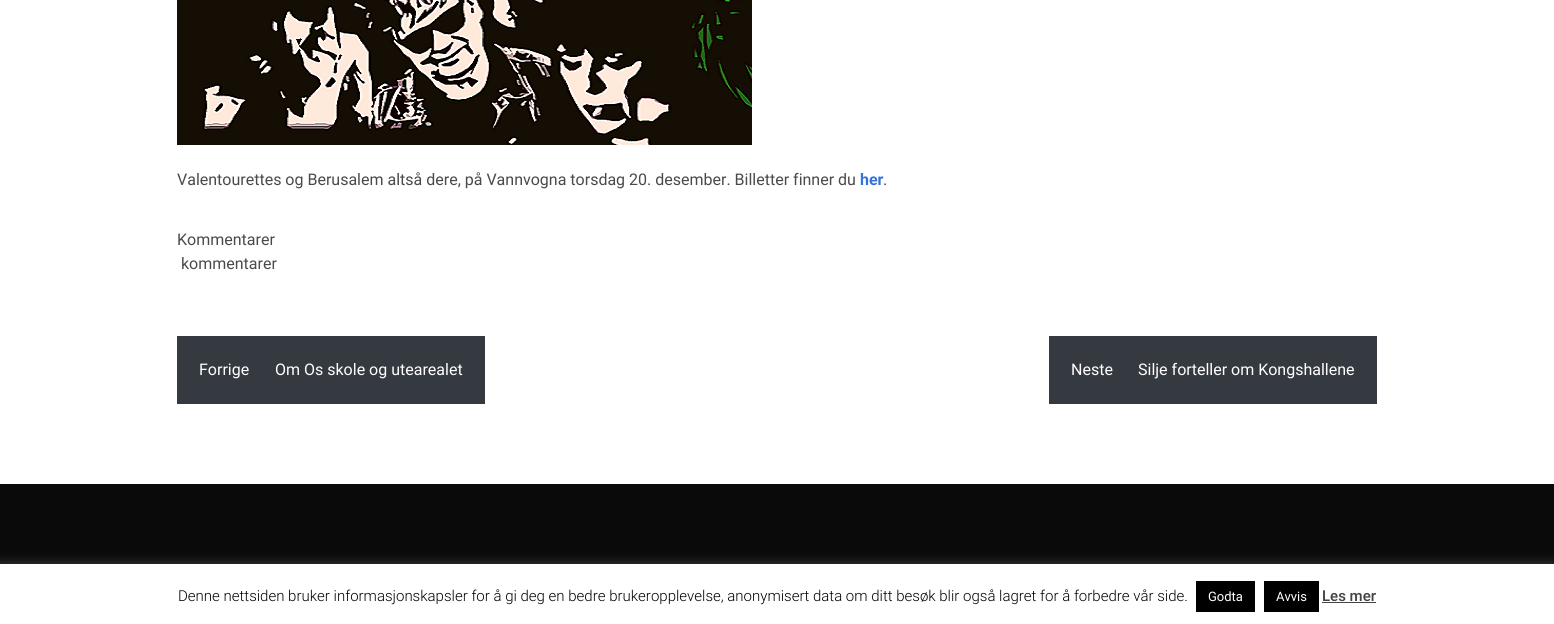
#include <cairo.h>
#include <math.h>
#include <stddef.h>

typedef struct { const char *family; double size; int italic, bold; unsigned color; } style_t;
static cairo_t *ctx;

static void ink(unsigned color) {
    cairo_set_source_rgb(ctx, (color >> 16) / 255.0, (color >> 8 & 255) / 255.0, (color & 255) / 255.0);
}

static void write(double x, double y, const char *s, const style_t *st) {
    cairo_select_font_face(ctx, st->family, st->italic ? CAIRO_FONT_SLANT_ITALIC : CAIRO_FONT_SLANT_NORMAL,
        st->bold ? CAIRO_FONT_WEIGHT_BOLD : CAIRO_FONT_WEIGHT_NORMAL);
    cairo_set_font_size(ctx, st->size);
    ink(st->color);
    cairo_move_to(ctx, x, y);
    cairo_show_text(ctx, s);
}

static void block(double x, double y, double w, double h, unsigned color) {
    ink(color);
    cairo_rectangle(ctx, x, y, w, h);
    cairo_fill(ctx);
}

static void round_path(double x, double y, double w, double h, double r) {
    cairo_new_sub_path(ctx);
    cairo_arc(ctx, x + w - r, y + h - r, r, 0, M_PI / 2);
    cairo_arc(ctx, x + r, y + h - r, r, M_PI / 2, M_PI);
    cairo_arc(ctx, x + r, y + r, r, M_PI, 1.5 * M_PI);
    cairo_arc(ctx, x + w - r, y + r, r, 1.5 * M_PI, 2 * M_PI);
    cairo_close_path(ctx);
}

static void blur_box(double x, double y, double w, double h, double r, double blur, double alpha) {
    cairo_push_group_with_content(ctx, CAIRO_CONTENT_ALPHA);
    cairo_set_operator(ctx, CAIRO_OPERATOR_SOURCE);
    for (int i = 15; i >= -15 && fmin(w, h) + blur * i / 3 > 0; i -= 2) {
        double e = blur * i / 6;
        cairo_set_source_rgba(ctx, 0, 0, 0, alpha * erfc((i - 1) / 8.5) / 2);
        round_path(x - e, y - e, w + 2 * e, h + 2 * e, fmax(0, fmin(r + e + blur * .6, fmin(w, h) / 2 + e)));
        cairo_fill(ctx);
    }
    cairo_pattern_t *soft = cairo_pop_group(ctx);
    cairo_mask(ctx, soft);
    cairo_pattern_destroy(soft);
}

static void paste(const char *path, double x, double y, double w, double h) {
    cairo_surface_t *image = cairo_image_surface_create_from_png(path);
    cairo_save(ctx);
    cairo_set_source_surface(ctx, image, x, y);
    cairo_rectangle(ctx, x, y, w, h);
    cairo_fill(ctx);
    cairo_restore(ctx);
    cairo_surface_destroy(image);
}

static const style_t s1 = {"Roboto", 16, 0, 0, 0x4a4a4a};
static const style_t s2 = {"Roboto", 16, 0, 1, 0x3273dc};
static const style_t s3 = {"Roboto", 16, 0, 0, 0xffffff};
static const style_t s4 = {"Roboto Light", 15, 0, 0, 0x000000};
static const style_t s5 = {"Roboto", 13, 0, 0, 0xffffff};
static const style_t s6 = {"Roboto Medium", 15, 0, 0, 0x444444};

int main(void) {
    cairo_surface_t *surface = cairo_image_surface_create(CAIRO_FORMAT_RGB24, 1554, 624);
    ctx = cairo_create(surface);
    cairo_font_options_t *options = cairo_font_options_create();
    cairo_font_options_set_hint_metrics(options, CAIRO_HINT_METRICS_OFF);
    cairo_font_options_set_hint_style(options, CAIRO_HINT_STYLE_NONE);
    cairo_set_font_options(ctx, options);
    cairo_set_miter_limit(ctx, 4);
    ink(0xffffff);
    cairo_paint(ctx);
    paste("pic1.png", 177, 0, 575, 145);
    write(177, 185, "Valentourettes og Berusalem altså dere, på Vannvogna torsdag 20. desember. Billetter finner du", &s1);
    write(860, 185, "her", &s2);
    write(883, 185, ".", &s1);
    write(177, 245, "Kommentarer", &s1);
    write(181, 269, "kommentarer", &s1);
    block(177, 336, 308, 68, 0x353a40);
    write(199, 375, "Forrige", &s3);
    write(275, 375, "Om Os skole og utearealet", &s3);
    block(1049, 336, 328, 68, 0x353a40);
    write(1071, 375, "Neste", &s3);
    write(1138, 375, "Silje forteller om Kongshallene", &s3);
    block(0, 484, 1554, 80, 0x0a0a0a);
    ink(0xacabab);
    blur_box(0, 563, 1554, 60, 0, 5, 0.3);
    block(0, 564, 1554, 60, 0xffffff);
    write(178, 601, "Denne nettsiden bruker informasjonskapsler for å gi deg en bedre brukeropplevelse, anonymisert data om ditt besøk blir også lagret for å forbedre vår side.", &s4);
    block(1196, 581, 59, 31, 0x000000);
    write(1208, 601, "Godta", &s5);
    block(1264, 581, 55, 31, 0x000000);
    write(1276, 601, "Avvis", &s5);
    write(1322, 601, "Les mer", &s6);
    block(1322, 602, 54, 1, 0x444444);
    cairo_surface_write_to_png(surface, "screenshot.png");
    cairo_font_options_destroy(options);
    cairo_destroy(ctx);
    cairo_surface_destroy(surface);
    return 0;
}
